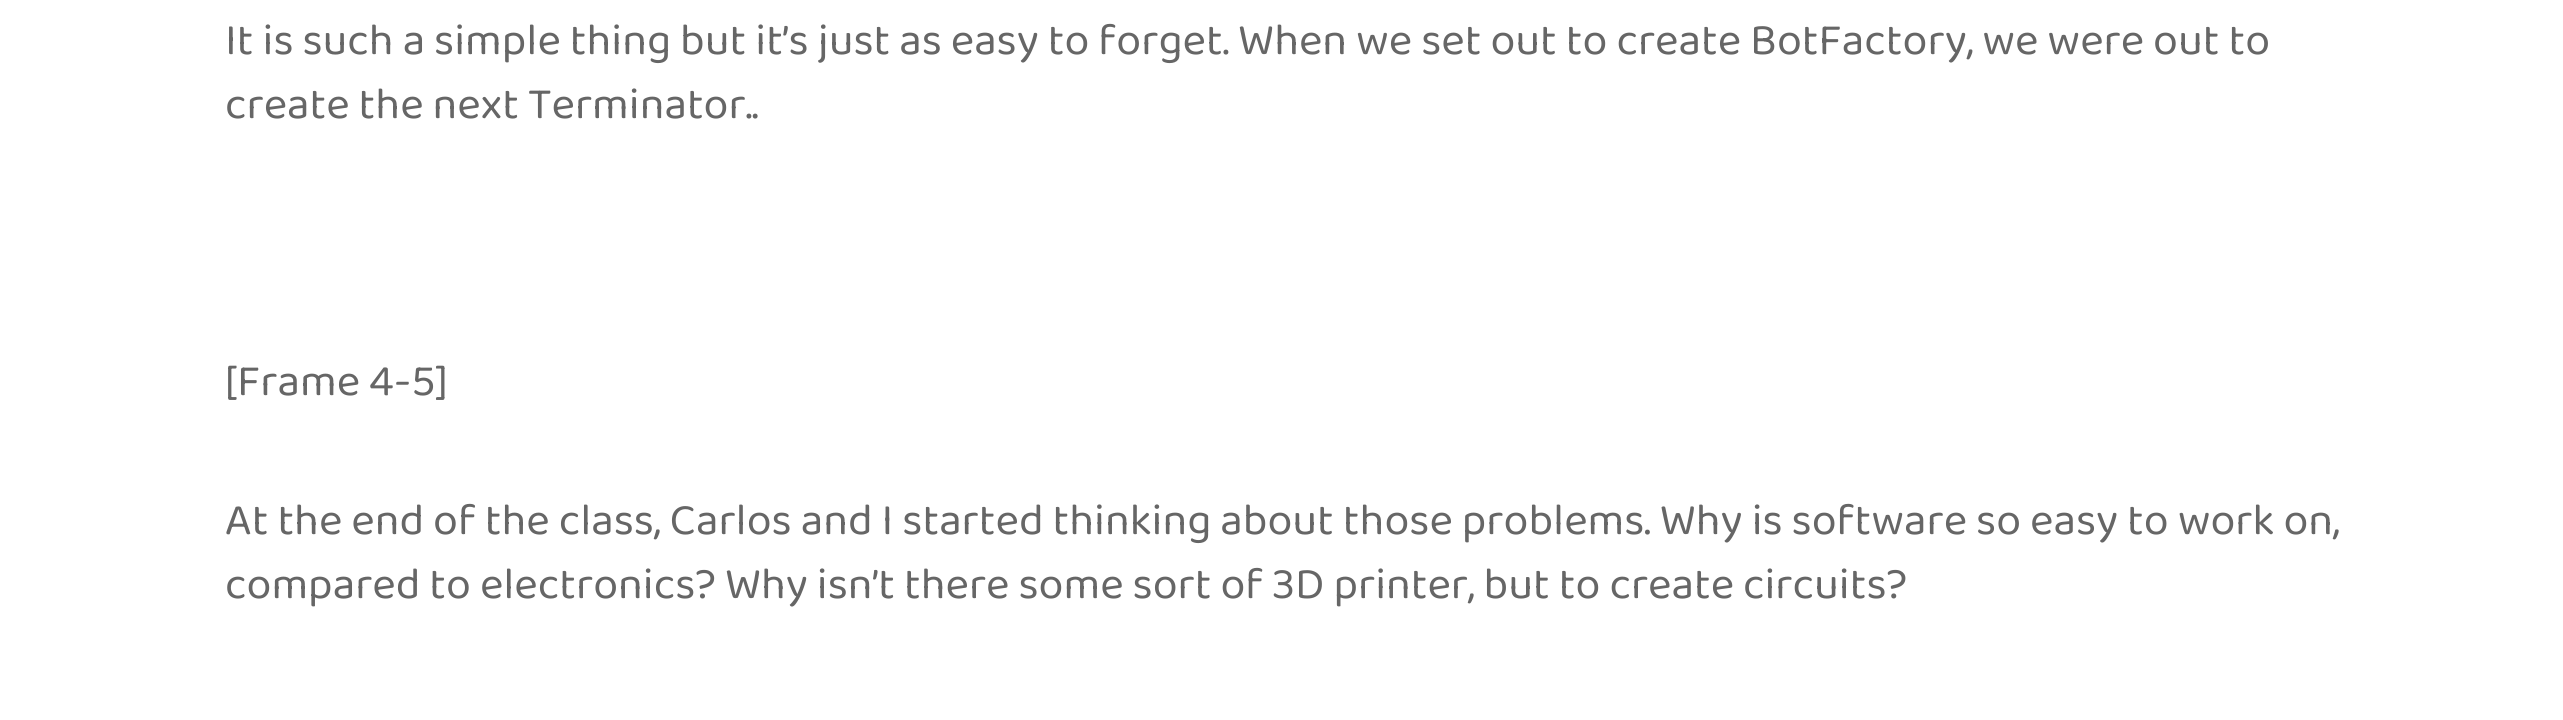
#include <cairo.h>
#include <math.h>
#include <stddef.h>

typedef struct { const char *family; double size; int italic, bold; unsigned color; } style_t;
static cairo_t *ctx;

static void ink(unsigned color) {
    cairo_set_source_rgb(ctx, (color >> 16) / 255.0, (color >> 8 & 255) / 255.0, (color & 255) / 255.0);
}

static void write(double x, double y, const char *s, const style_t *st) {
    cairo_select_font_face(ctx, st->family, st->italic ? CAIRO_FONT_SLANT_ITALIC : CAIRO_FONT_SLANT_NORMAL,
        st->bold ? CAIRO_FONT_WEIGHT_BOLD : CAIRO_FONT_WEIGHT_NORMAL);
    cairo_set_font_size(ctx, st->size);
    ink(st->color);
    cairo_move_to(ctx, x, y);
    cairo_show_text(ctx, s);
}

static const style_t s1 = {"Baloo 2", 45, 0, 0, 0x666666};

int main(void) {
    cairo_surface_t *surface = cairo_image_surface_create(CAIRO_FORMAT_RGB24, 2563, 720);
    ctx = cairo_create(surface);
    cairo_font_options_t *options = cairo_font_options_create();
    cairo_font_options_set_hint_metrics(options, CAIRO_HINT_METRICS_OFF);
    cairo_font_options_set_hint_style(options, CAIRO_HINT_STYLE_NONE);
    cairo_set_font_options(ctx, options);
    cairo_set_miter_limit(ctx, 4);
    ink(0xffffff);
    cairo_paint(ctx);
    write(225, 54, "It is such a simple thing but it’s just as easy to forget. When we set out to create BotFactory, we were out to", &s1);
    write(225, 118, "create the next Terminator..", &s1);
    write(225, 395, "[Frame 4-5]", &s1);
    write(225, 534, "At the end of the class, Carlos and I started thinking about those problems. Why is software so easy to work on,", &s1);
    write(225, 598, "compared to electronics? Why isn’t there some sort of 3D printer, but to create circuits?", &s1);
    cairo_surface_write_to_png(surface, "screenshot.png");
    cairo_font_options_destroy(options);
    cairo_destroy(ctx);
    cairo_surface_destroy(surface);
    return 0;
}
